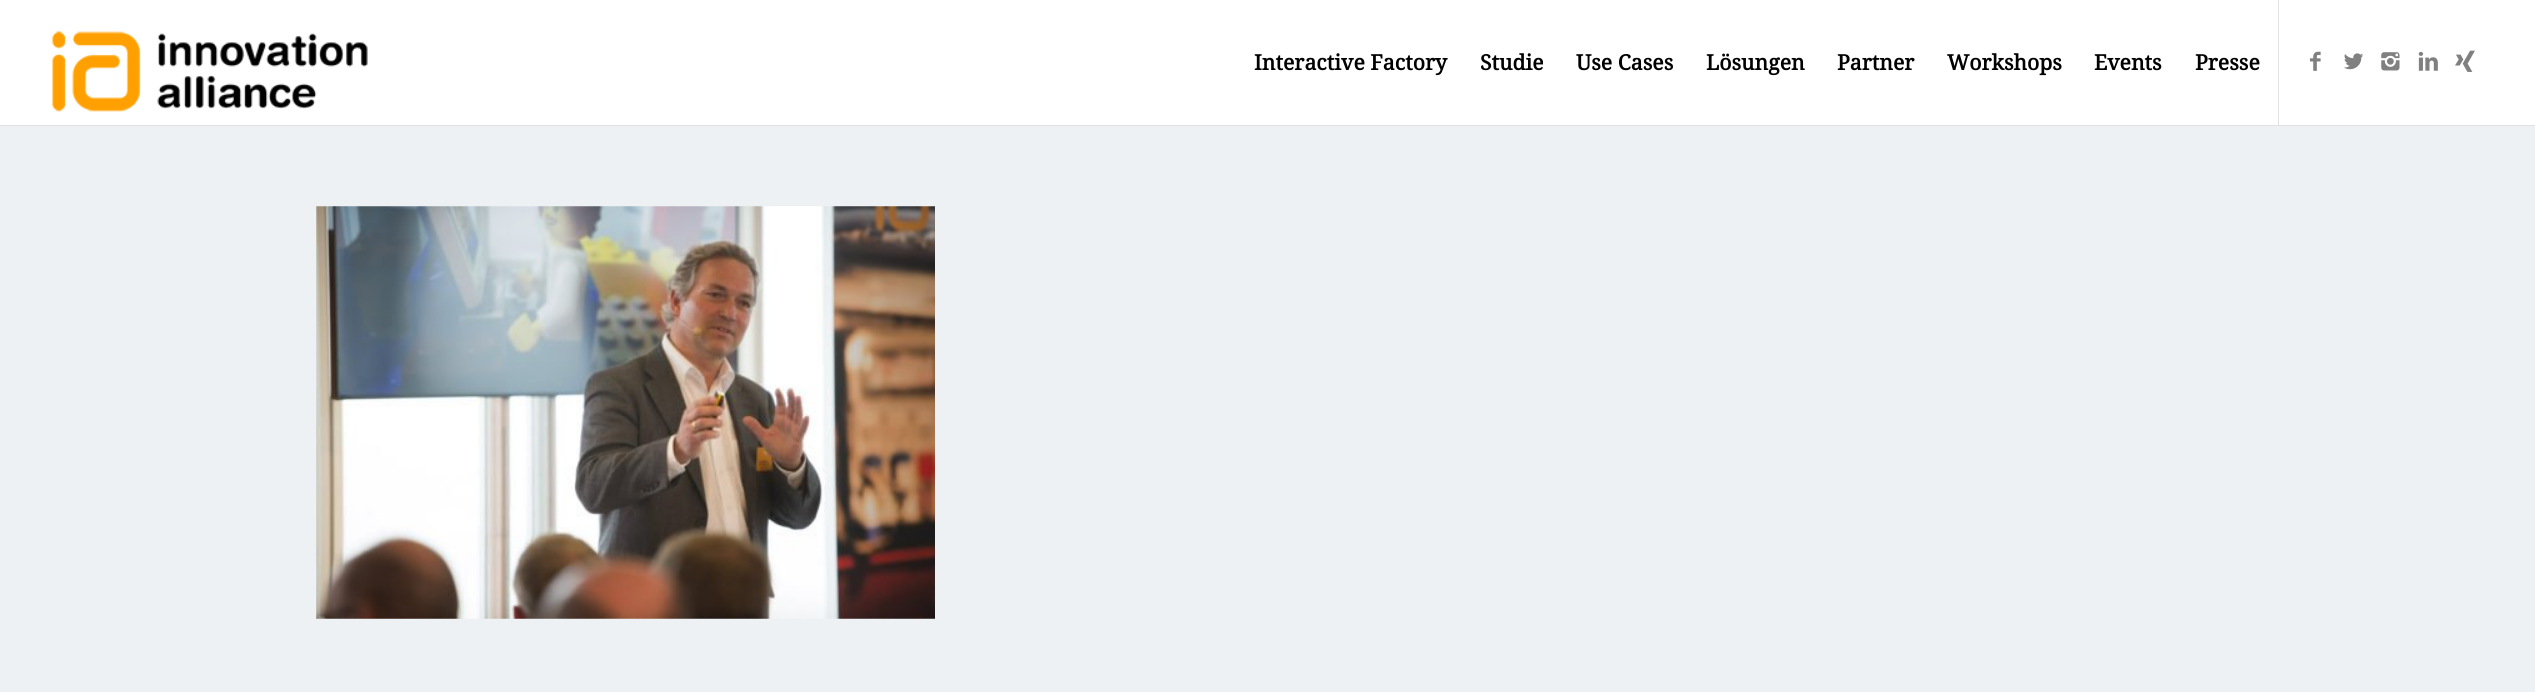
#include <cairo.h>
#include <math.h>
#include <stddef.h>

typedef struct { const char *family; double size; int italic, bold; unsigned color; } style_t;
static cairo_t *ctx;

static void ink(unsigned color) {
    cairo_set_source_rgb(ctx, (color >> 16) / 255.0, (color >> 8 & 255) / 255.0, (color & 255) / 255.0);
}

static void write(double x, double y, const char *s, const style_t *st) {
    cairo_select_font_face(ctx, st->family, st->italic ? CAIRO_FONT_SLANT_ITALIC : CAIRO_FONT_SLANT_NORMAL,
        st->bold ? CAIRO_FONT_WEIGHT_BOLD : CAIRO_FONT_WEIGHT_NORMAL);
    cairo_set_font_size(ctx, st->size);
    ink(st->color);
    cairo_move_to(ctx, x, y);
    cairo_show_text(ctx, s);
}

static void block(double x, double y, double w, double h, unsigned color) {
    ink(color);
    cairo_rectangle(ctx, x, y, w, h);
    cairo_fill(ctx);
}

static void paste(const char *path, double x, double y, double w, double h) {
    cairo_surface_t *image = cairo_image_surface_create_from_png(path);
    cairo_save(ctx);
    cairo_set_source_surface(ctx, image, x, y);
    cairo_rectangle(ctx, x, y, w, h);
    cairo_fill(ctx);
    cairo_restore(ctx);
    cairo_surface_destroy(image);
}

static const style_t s1 = {"Droid Serif", 21.25, 0, 1, 0x000000};

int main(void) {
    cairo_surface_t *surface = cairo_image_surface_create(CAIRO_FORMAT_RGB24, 2535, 692);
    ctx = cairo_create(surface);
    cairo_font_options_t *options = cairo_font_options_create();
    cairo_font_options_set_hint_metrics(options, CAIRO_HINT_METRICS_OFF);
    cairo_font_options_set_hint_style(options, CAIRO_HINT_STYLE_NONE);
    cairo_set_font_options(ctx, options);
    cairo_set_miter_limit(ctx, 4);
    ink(0xeef1f3);
    cairo_paint(ctx);
    block(0, 0, 2535, 125, 0xffffff);
    block(0, 125, 2535, 1, 0xe1e1e1);
    paste("pic1.png", 52, 31, 316, 81);
    block(2278, 0, 1, 125, 0xe1e1e1);
    write(1254, 70, "Interactive Factory", &s1);
    write(1480, 70, "Studie", &s1);
    write(1576, 70, "Use Cases", &s1);
    write(1706, 70, "Lösungen", &s1);
    write(1837, 70, "Partner", &s1);
    write(1947, 70, "Workshops", &s1);
    write(2094, 70, "Events", &s1);
    write(2195, 70, "Presse", &s1);
    paste("pic2.png", 2310, 51, 11, 20);
    paste("pic3.png", 2344, 53, 20, 17);
    paste("pic4.png", 2381, 52, 19, 19);
    paste("pic5.png", 2418, 51, 20, 20);
    paste("pic6.png", 2455, 50, 20, 22);
    paste("pic7.png", 316, 206, 619, 413);
    cairo_surface_write_to_png(surface, "screenshot.png");
    cairo_font_options_destroy(options);
    cairo_destroy(ctx);
    cairo_surface_destroy(surface);
    return 0;
}
